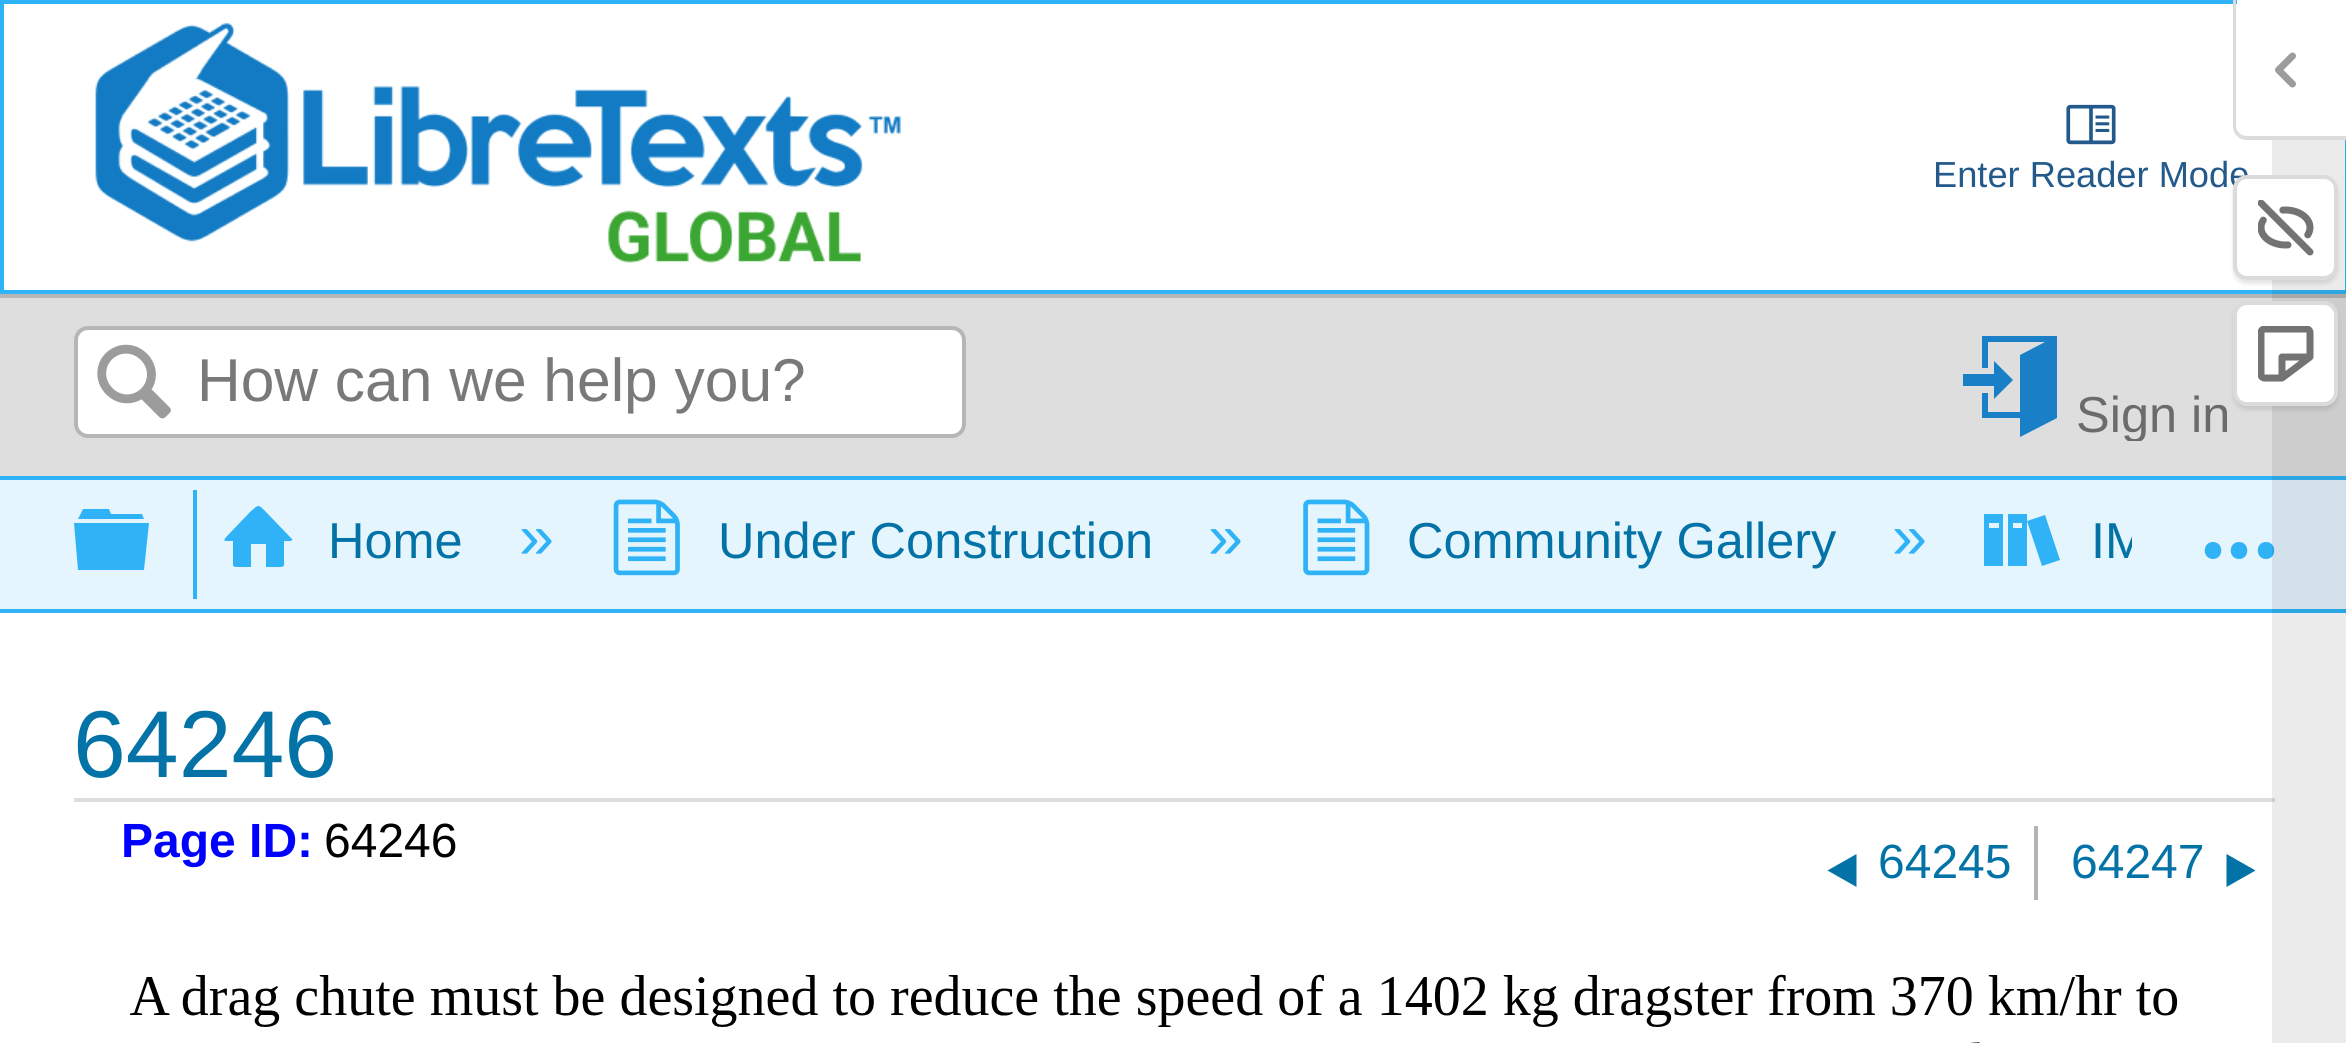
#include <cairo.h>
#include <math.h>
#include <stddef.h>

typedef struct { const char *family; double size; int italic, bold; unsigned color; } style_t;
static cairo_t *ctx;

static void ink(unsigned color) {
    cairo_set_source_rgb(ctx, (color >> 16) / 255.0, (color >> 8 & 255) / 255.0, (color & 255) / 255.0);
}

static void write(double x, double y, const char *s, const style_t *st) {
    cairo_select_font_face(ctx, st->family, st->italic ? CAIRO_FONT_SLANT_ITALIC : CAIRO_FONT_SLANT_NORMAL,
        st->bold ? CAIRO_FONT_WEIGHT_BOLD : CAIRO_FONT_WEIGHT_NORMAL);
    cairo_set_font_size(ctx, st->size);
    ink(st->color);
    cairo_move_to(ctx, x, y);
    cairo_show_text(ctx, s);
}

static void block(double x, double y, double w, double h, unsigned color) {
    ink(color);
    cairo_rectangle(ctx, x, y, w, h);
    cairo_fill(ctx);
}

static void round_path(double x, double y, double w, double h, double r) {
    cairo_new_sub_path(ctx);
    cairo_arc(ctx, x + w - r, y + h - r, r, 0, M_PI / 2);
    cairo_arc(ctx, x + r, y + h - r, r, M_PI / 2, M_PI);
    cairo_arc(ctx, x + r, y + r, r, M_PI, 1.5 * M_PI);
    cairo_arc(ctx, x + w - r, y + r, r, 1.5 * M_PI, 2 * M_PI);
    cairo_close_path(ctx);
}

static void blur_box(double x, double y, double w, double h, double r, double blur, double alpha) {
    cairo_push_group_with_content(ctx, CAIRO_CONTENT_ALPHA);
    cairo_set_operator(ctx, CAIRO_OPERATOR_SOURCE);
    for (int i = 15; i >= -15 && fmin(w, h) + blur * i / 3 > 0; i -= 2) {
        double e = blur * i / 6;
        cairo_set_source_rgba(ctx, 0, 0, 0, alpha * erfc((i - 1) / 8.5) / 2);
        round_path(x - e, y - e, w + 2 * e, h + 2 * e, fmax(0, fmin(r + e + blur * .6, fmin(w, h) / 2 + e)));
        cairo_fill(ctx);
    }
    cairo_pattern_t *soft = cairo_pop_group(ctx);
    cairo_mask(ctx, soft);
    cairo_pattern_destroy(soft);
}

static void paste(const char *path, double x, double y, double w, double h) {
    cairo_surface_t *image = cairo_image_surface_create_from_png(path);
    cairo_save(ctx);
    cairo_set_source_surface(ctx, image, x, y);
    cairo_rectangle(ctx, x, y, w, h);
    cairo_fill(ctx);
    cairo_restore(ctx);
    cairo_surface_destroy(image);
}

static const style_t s1 = {"Liberation Sans", 36.25, 0, 0, 0x235a8b};
static const style_t s2 = {"Liberation Sans", 60.5, 0, 0, 0x797979};
static const style_t s3 = {"Liberation Sans", 50.5, 0, 0, 0x6b6b6b};
static const style_t s4 = {"Liberation Sans", 50.5, 0, 0, 0x0372a6};
static const style_t s5 = {"Liberation Sans", 63, 0, 0, 0x30b3f6};
static const style_t s6 = {"Liberation Sans", 95, 0, 0, 0x0372a6};
static const style_t s7 = {"Liberation Sans", 48, 0, 1, 0x0000ff};
static const style_t s8 = {"Liberation Sans", 48, 0, 0, 0x000000};
static const style_t s9 = {"Liberation Sans", 48, 0, 0, 0x0372a6};

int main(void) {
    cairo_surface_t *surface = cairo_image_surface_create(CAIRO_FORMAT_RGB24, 2346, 1043);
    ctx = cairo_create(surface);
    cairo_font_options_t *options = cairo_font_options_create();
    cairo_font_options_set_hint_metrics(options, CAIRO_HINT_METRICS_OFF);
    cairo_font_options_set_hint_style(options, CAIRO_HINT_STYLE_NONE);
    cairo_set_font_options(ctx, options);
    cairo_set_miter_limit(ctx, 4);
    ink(0xffffff);
    cairo_paint(ctx);
    cairo_rectangle(ctx, 2, 2, 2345, 290);
    ink(0x30b3f6);
    cairo_set_line_width(ctx, 4);
    cairo_stroke(ctx);
    paste("pic1.png", 95, 23, 806, 240);
    paste("pic2.png", 2066, 104, 50, 41);
    write(1933, 187, "Enter Reader Mode", &s1);
    block(0, 298, 2346, 178, 0xdedede);
    block(0, 294, 2346, 4, 0xb6b6b6);
    ink(0xffffff);
    round_path(76, 328, 888, 108, 12);
    cairo_fill_preserve(ctx);
    ink(0xb6b6b6);
    cairo_stroke(ctx);
    paste("pic3.png", 97, 344, 74, 75);
    write(197, 401, "How can we help you?", &s2);
    ink(0x197fc6);
    cairo_new_path(ctx);
    cairo_move_to(ctx, 1994, 386);
    cairo_line_to(ctx, 1963, 386);
    cairo_line_to(ctx, 1963, 374);
    cairo_line_to(ctx, 1994, 374);
    cairo_line_to(ctx, 1994, 361);
    cairo_line_to(ctx, 2013, 380);
    cairo_line_to(ctx, 1994, 399);
    cairo_close_path(ctx);
    cairo_move_to(ctx, 2057, 336);
    cairo_line_to(ctx, 2057, 418);
    cairo_line_to(ctx, 2020, 437);
    cairo_line_to(ctx, 2020, 418);
    cairo_line_to(ctx, 1982, 418);
    cairo_line_to(ctx, 1982, 393);
    cairo_line_to(ctx, 1988, 393);
    cairo_line_to(ctx, 1988, 412);
    cairo_line_to(ctx, 2020, 412);
    cairo_line_to(ctx, 2020, 355);
    cairo_line_to(ctx, 2045, 342);
    cairo_line_to(ctx, 1988, 342);
    cairo_line_to(ctx, 1988, 368);
    cairo_line_to(ctx, 1982, 368);
    cairo_line_to(ctx, 1982, 336);
    cairo_close_path(ctx);
    cairo_fill(ctx);
    cairo_save(ctx);
    cairo_rectangle(ctx, 1957, 333, 294, 108);
    cairo_clip(ctx);
    write(2076, 432, "Sign in", &s3);
    cairo_restore(ctx);
    block(0, 480, 2346, 129, 0xe5f5fe);
    block(0, 476, 2346, 4, 0x30b3f6);
    block(0, 609, 2346, 4, 0x30b3f6);
    cairo_new_path(ctx);
    cairo_move_to(ctx, 74, 523);
    cairo_line_to(ctx, 149, 523);
    cairo_line_to(ctx, 144, 570);
    cairo_line_to(ctx, 78, 570);
    cairo_close_path(ctx);
    cairo_move_to(ctx, 142, 514);
    cairo_line_to(ctx, 144, 519);
    cairo_line_to(ctx, 78, 519);
    cairo_line_to(ctx, 83, 509);
    cairo_line_to(ctx, 109, 509);
    cairo_line_to(ctx, 111, 514);
    cairo_close_path(ctx);
    cairo_fill(ctx);
    block(193, 490, 4, 109, 0x30b3f6);
    write(328, 558, "Home", &s4);
    ink(0x30b3f6);
    cairo_new_path(ctx);
    cairo_move_to(ctx, 291, 538);
    cairo_line_to(ctx, 266, 512);
    cairo_curve_to(ctx, 258, 504, 259, 504, 250, 512);
    cairo_line_to(ctx, 230, 533);
    cairo_curve_to(ctx, 221, 542, 223, 541, 233, 541);
    cairo_line_to(ctx, 233, 560);
    cairo_curve_to(ctx, 233, 566, 232, 567, 238, 567);
    cairo_line_to(ctx, 251, 567);
    cairo_line_to(ctx, 251, 544);
    cairo_line_to(ctx, 266, 544);
    cairo_line_to(ctx, 266, 567);
    cairo_line_to(ctx, 279, 567);
    cairo_curve_to(ctx, 285, 567, 284, 566, 284, 560);
    cairo_line_to(ctx, 284, 541);
    cairo_curve_to(ctx, 285, 541, 296, 542, 291, 538);
    cairo_close_path(ctx);
    cairo_fill(ctx);
    write(519, 558, "»", &s5);
    paste("pic4.png", 613, 499, 67, 77);
    write(718, 558, "Under Construction", &s4);
    write(1208, 558, "»", &s5);
    paste("pic5.png", 1303, 499, 67, 77);
    write(1407, 558, "Community Gallery", &s4);
    write(1892, 558, "»", &s5);
    cairo_save(ctx);
    cairo_rectangle(ctx, 196, 490, 1936, 109);
    cairo_clip(ctx);
    write(2091, 558, "IM", &s4);
    cairo_restore(ctx);
    cairo_new_path(ctx);
    cairo_move_to(ctx, 2027, 521);
    cairo_line_to(ctx, 2045, 515);
    cairo_line_to(ctx, 2060, 560);
    cairo_line_to(ctx, 2042, 566);
    cairo_close_path(ctx);
    cairo_move_to(ctx, 1984, 566);
    cairo_line_to(ctx, 2003, 566);
    cairo_line_to(ctx, 2003, 514);
    cairo_line_to(ctx, 1984, 514);
    cairo_close_path(ctx);
    cairo_move_to(ctx, 1989, 523);
    cairo_line_to(ctx, 1999, 523);
    cairo_line_to(ctx, 1999, 528);
    cairo_line_to(ctx, 1989, 528);
    cairo_close_path(ctx);
    cairo_move_to(ctx, 2008, 566);
    cairo_line_to(ctx, 2027, 566);
    cairo_line_to(ctx, 2027, 514);
    cairo_line_to(ctx, 2008, 514);
    cairo_close_path(ctx);
    cairo_move_to(ctx, 2013, 523);
    cairo_line_to(ctx, 2022, 523);
    cairo_line_to(ctx, 2022, 528);
    cairo_line_to(ctx, 2013, 528);
    cairo_close_path(ctx);
    cairo_fill(ctx);
    cairo_new_path(ctx);
    cairo_move_to(ctx, 2213, 542);
    cairo_curve_to(ctx, 2202, 542, 2202, 559, 2213, 559);
    cairo_curve_to(ctx, 2224, 559, 2224, 542, 2213, 542);
    cairo_close_path(ctx);
    cairo_move_to(ctx, 2239, 542);
    cairo_curve_to(ctx, 2228, 542, 2228, 559, 2239, 559);
    cairo_curve_to(ctx, 2250, 559, 2250, 542, 2239, 542);
    cairo_close_path(ctx);
    cairo_move_to(ctx, 2266, 542);
    cairo_curve_to(ctx, 2255, 542, 2255, 559, 2266, 559);
    cairo_curve_to(ctx, 2277, 559, 2277, 542, 2266, 542);
    cairo_close_path(ctx);
    cairo_fill(ctx);
    block(74, 798, 2201, 4, 0xdddddd);
    write(73, 777, "64246", &s6);
    write(121, 857, "Page ID:", &s7);
    write(324, 857, "64246", &s8);
    block(2034, 826, 4, 74, 0xb4b4b4);
    ink(0x0372a6);
    cairo_new_path(ctx);
    cairo_move_to(ctx, 1856.5, 854);
    cairo_line_to(ctx, 1856.5, 887);
    cairo_line_to(ctx, 1827.5, 870.5);
    cairo_close_path(ctx);
    cairo_fill(ctx);
    write(1878, 878, "64245", &s9);
    write(2071, 878, "64247", &s9);
    cairo_new_path(ctx);
    cairo_move_to(ctx, 2226.5, 854);
    cairo_line_to(ctx, 2226.5, 887);
    cairo_line_to(ctx, 2255.5, 870.5);
    cairo_close_path(ctx);
    cairo_fill(ctx);
    paste("pic6.png", 130, 974, 2048, 69);
    cairo_set_source_rgba(ctx, 0, 0, 0, 0.08);
    cairo_rectangle(ctx, 2272, 140, 74, 903);
    cairo_fill(ctx);
    ink(0xffffff);
    cairo_new_path(ctx);
    cairo_move_to(ctx, 2237, 0);
    cairo_line_to(ctx, 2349, 0);
    cairo_line_to(ctx, 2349, 137);
    cairo_line_to(ctx, 2248, 137);
    cairo_curve_to(ctx, 2242, 137, 2237, 132, 2237, 126);
    cairo_close_path(ctx);
    cairo_fill(ctx);
    ink(0xdbdbdb);
    cairo_set_fill_rule(ctx, CAIRO_FILL_RULE_EVEN_ODD);
    cairo_new_path(ctx);
    cairo_move_to(ctx, 2233, 0);
    cairo_line_to(ctx, 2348, 0);
    cairo_line_to(ctx, 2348, 140);
    cairo_line_to(ctx, 2247, 140);
    cairo_curve_to(ctx, 2239, 140, 2233, 134, 2233, 126);
    cairo_close_path(ctx);
    cairo_move_to(ctx, 2236, 0);
    cairo_line_to(ctx, 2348, 0);
    cairo_line_to(ctx, 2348, 136);
    cairo_line_to(ctx, 2247, 136);
    cairo_curve_to(ctx, 2241, 136, 2236, 132, 2236, 126);
    cairo_close_path(ctx);
    cairo_fill(ctx);
    paste("pic7.png", 2275, 52, 21, 36);
    ink(0x000000);
    blur_box(2233, 179, 105, 105, 14, 2, 0.1);
    ink(0xffffff);
    round_path(2235, 177, 101, 101, 12);
    cairo_fill_preserve(ctx);
    ink(0xdbdbdb);
    cairo_stroke(ctx);
    paste("pic8.png", 2258, 200, 56, 56);
    ink(0x000000);
    blur_box(2233, 305, 105, 105, 14, 2, 0.1);
    ink(0xffffff);
    round_path(2235, 303, 101, 101, 12);
    cairo_fill_preserve(ctx);
    ink(0xdbdbdb);
    cairo_stroke(ctx);
    paste("pic9.png", 2258, 326, 56, 56);
    cairo_surface_write_to_png(surface, "screenshot.png");
    cairo_font_options_destroy(options);
    cairo_destroy(ctx);
    cairo_surface_destroy(surface);
    return 0;
}
